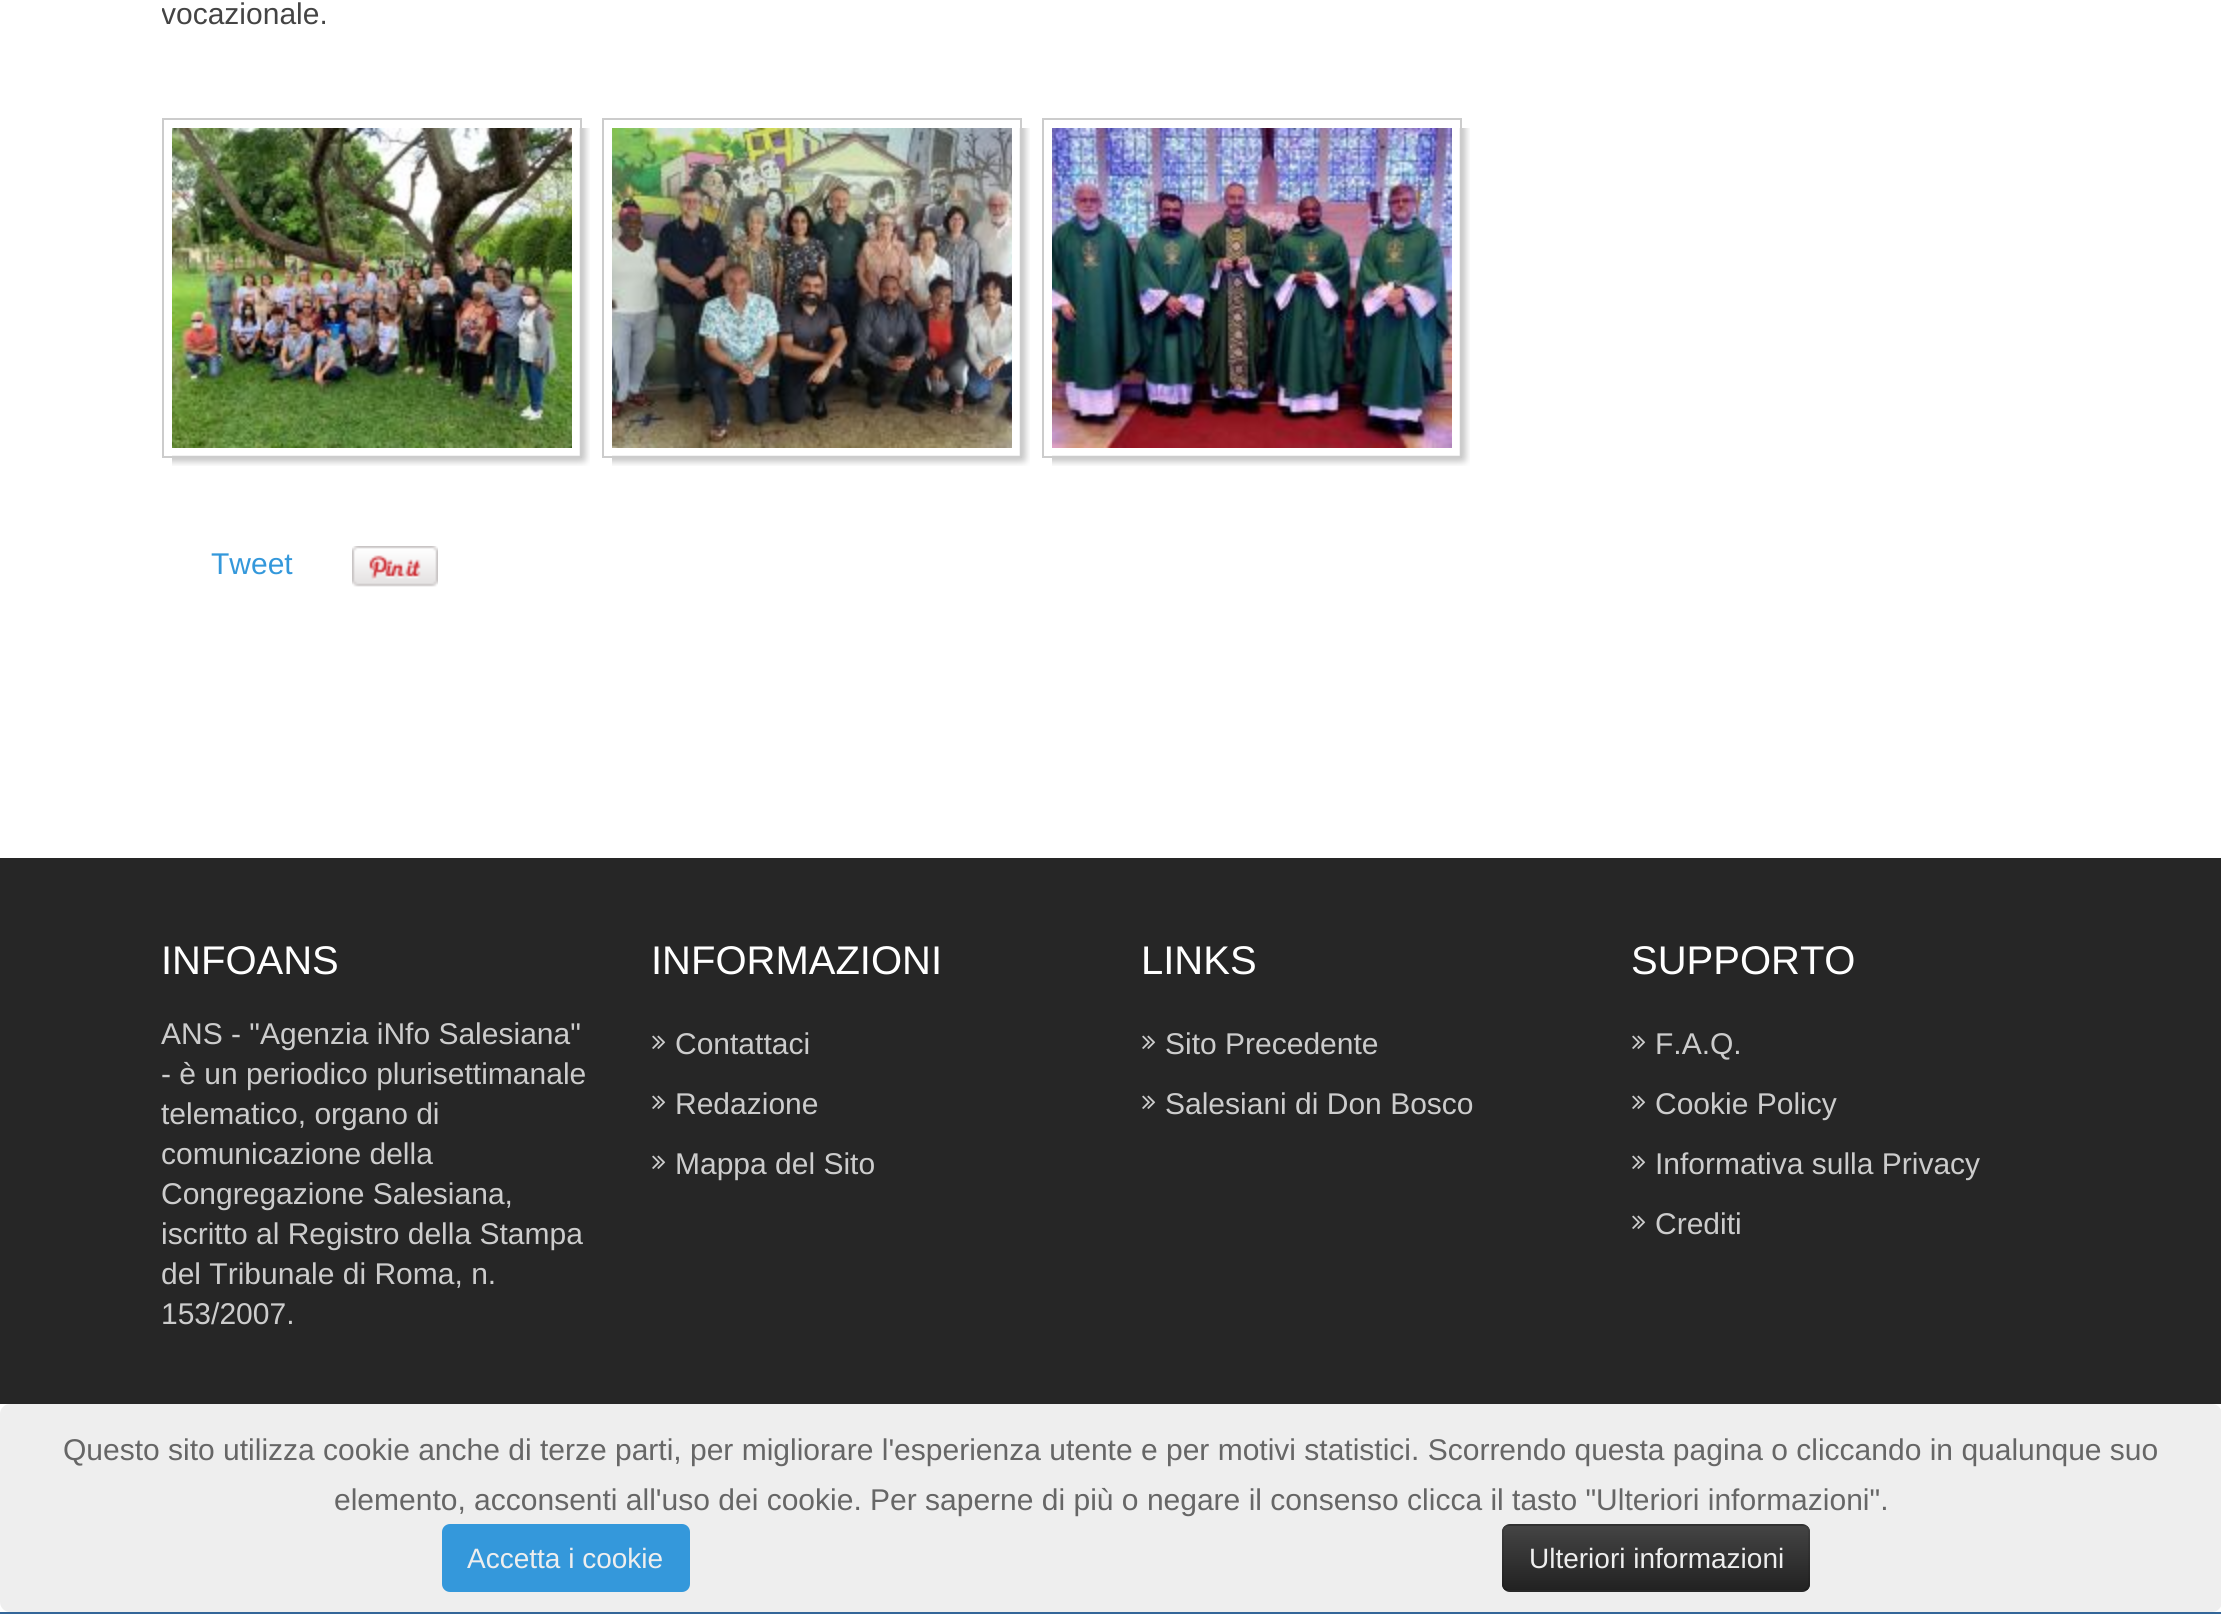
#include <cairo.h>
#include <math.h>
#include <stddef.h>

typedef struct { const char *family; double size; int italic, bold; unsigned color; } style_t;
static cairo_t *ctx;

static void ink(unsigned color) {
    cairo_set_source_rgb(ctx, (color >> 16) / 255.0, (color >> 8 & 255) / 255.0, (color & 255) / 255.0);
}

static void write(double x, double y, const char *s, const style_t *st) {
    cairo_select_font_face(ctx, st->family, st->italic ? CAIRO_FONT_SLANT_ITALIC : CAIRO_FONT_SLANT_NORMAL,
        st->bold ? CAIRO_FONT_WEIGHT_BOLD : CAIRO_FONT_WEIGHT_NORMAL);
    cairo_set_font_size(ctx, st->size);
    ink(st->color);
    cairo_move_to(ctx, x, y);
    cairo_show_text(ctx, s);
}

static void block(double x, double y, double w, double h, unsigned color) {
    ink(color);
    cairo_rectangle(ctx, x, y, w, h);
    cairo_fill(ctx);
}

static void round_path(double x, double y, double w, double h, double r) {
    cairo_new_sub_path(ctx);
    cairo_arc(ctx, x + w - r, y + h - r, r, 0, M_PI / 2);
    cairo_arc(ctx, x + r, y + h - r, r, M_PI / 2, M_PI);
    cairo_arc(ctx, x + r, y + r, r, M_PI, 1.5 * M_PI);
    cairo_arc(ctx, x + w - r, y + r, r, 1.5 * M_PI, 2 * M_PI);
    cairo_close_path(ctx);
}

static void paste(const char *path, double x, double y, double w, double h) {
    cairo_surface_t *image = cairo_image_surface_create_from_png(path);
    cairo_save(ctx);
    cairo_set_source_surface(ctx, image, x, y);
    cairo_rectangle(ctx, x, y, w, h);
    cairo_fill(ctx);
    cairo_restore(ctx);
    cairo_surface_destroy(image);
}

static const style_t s1 = {"Liberation Sans", 30, 0, 0, 0x444444};
static const style_t s2 = {"Liberation Sans", 30, 0, 0, 0x3498db};
static const style_t s3 = {"Liberation Sans", 40, 0, 0, 0xffffff};
static const style_t s4 = {"Liberation Sans", 30, 0, 0, 0xcccccc};
static const style_t s5 = {"Liberation Sans", 30, 0, 0, 0x666666};
static const style_t s6 = {"Liberation Sans", 28, 0, 0, 0xeeeeee};

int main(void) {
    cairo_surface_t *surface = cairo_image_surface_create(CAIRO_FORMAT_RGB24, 2221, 1614);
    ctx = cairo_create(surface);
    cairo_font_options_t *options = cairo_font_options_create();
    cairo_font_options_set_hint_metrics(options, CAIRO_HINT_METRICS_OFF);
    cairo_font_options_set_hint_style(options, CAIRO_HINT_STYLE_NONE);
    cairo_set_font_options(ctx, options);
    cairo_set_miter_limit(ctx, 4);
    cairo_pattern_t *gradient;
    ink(0xffffff);
    cairo_paint(ctx);
    cairo_save(ctx);
    cairo_rectangle(ctx, 162, 0, 1900, 798);
    cairo_clip(ctx);
    write(161, 24, "vocazionale.", &s1);
    cairo_restore(ctx);
    paste("pic1.png", 172, 128, 418, 338);
    cairo_rectangle(ctx, 163, 119, 418, 338);
    ink(0xcccccc);
    cairo_stroke(ctx);
    paste("pic2.png", 172, 128, 400, 320);
    paste("pic1.png", 612, 128, 418, 338);
    cairo_rectangle(ctx, 603, 119, 418, 338);
    cairo_stroke(ctx);
    paste("pic3.png", 612, 128, 400, 320);
    paste("pic1.png", 1052, 128, 418, 338);
    cairo_rectangle(ctx, 1043, 119, 418, 338);
    cairo_stroke(ctx);
    paste("pic4.png", 1052, 128, 400, 320);
    write(211, 574, "Tweet", &s2);
    paste("pic5.png", 352, 546, 86, 41);
    block(0, 858, 2221, 546, 0x262626);
    write(161, 974, "INFOANS", &s3);
    write(161, 1044, "ANS - \"Agenzia iNfo Salesiana\"", &s4);
    write(161, 1084, "- è un periodico plurisettimanale", &s4);
    write(161, 1124, "telematico, organo di", &s4);
    write(161, 1164, "comunicazione della", &s4);
    write(161, 1204, "Congregazione Salesiana,", &s4);
    write(161, 1244, "iscritto al Registro della Stampa", &s4);
    write(161, 1284, "del Tribunale di Roma, n.", &s4);
    write(161, 1324, "153/2007.", &s4);
    write(651, 974, "INFORMAZIONI", &s3);
    paste("pic6.png", 652, 1035, 14, 14);
    write(675, 1054, "Contattaci", &s4);
    paste("pic6.png", 652, 1095, 14, 14);
    write(675, 1114, "Redazione", &s4);
    paste("pic6.png", 652, 1155, 14, 14);
    write(675, 1174, "Mappa del Sito", &s4);
    write(1141, 974, "LINKS", &s3);
    paste("pic6.png", 1142, 1035, 14, 14);
    write(1165, 1054, "Sito Precedente", &s4);
    paste("pic6.png", 1142, 1095, 14, 14);
    write(1165, 1114, "Salesiani di Don Bosco", &s4);
    write(1631, 974, "SUPPORTO", &s3);
    paste("pic6.png", 1632, 1035, 14, 14);
    write(1655, 1054, "F.A.Q.", &s4);
    paste("pic6.png", 1632, 1095, 14, 14);
    write(1655, 1114, "Cookie Policy", &s4);
    paste("pic6.png", 1632, 1155, 14, 14);
    write(1655, 1174, "Informativa sulla Privacy", &s4);
    paste("pic6.png", 1632, 1215, 14, 14);
    write(1655, 1234, "Crediti", &s4);
    block(0, 1612, 2221, 2, 0x336699);
    ink(0xeeeeee);
    round_path(0, 1404, 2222, 208, 10);
    cairo_fill(ctx);
    write(63, 1460, "Questo sito utilizza cookie anche di terze parti, per migliorare l'esperienza utente e per motivi statistici. Scorrendo questa pagina o cliccando in qualunque suo", &s5);
    write(334, 1510, "elemento, acconsenti all'uso dei cookie. Per saperne di più o negare il consenso clicca il tasto \"Ulteriori informazioni\".", &s5);
    ink(0x3498db);
    round_path(442, 1524, 248, 68, 8);
    cairo_fill(ctx);
    write(467, 1568, "Accetta i cookie", &s6);
    ink(0x363636);
    round_path(1502, 1524, 308, 68, 8);
    cairo_fill(ctx);
    cairo_save(ctx);
    round_path(1502, 1524, 308, 68, 8);
    cairo_clip(ctx);
    gradient = cairo_pattern_create_linear(1656, 1526, 1656, 1590);
    cairo_pattern_add_color_stop_rgba(gradient, 0, 0.267, 0.267, 0.267, 1);
    cairo_pattern_add_color_stop_rgba(gradient, 1, 0.133, 0.133, 0.133, 1);
    cairo_set_source(ctx, gradient);
    cairo_pattern_destroy(gradient);
    cairo_rectangle(ctx, 1502, 1526, 308, 64);
    cairo_fill(ctx);
    cairo_restore(ctx);
    cairo_new_path(ctx);
    cairo_move_to(ctx, 1807, 1589);
    cairo_curve_to(ctx, 1805.5, 1590.5, 1804, 1591, 1802, 1591);
    cairo_line_to(ctx, 1510, 1591);
    cairo_curve_to(ctx, 1508, 1591, 1506.5, 1590.5, 1505, 1589);
    cairo_set_source_rgba(ctx, 0, 0, 0, 0.25);
    cairo_stroke(ctx);
    cairo_new_path(ctx);
    cairo_move_to(ctx, 1505, 1589);
    cairo_curve_to(ctx, 1503.5, 1587.5, 1503, 1586, 1503, 1584);
    cairo_line_to(ctx, 1503, 1532);
    cairo_curve_to(ctx, 1503, 1530, 1503.5, 1528.5, 1505, 1527);
    cairo_curve_to(ctx, 1506.5, 1525.5, 1508, 1525, 1510, 1525);
    cairo_line_to(ctx, 1802, 1525);
    cairo_curve_to(ctx, 1804, 1525, 1805.5, 1525.5, 1807, 1527);
    cairo_curve_to(ctx, 1808.5, 1528.5, 1809, 1530, 1809, 1532);
    cairo_line_to(ctx, 1809, 1584);
    cairo_curve_to(ctx, 1809, 1586, 1808.5, 1587.5, 1807, 1589);
    cairo_set_source_rgba(ctx, 0, 0, 0, 0.1);
    cairo_stroke(ctx);
    write(1529, 1568, "Ulteriori informazioni", &s6);
    cairo_surface_write_to_png(surface, "screenshot.png");
    cairo_font_options_destroy(options);
    cairo_destroy(ctx);
    cairo_surface_destroy(surface);
    return 0;
}
